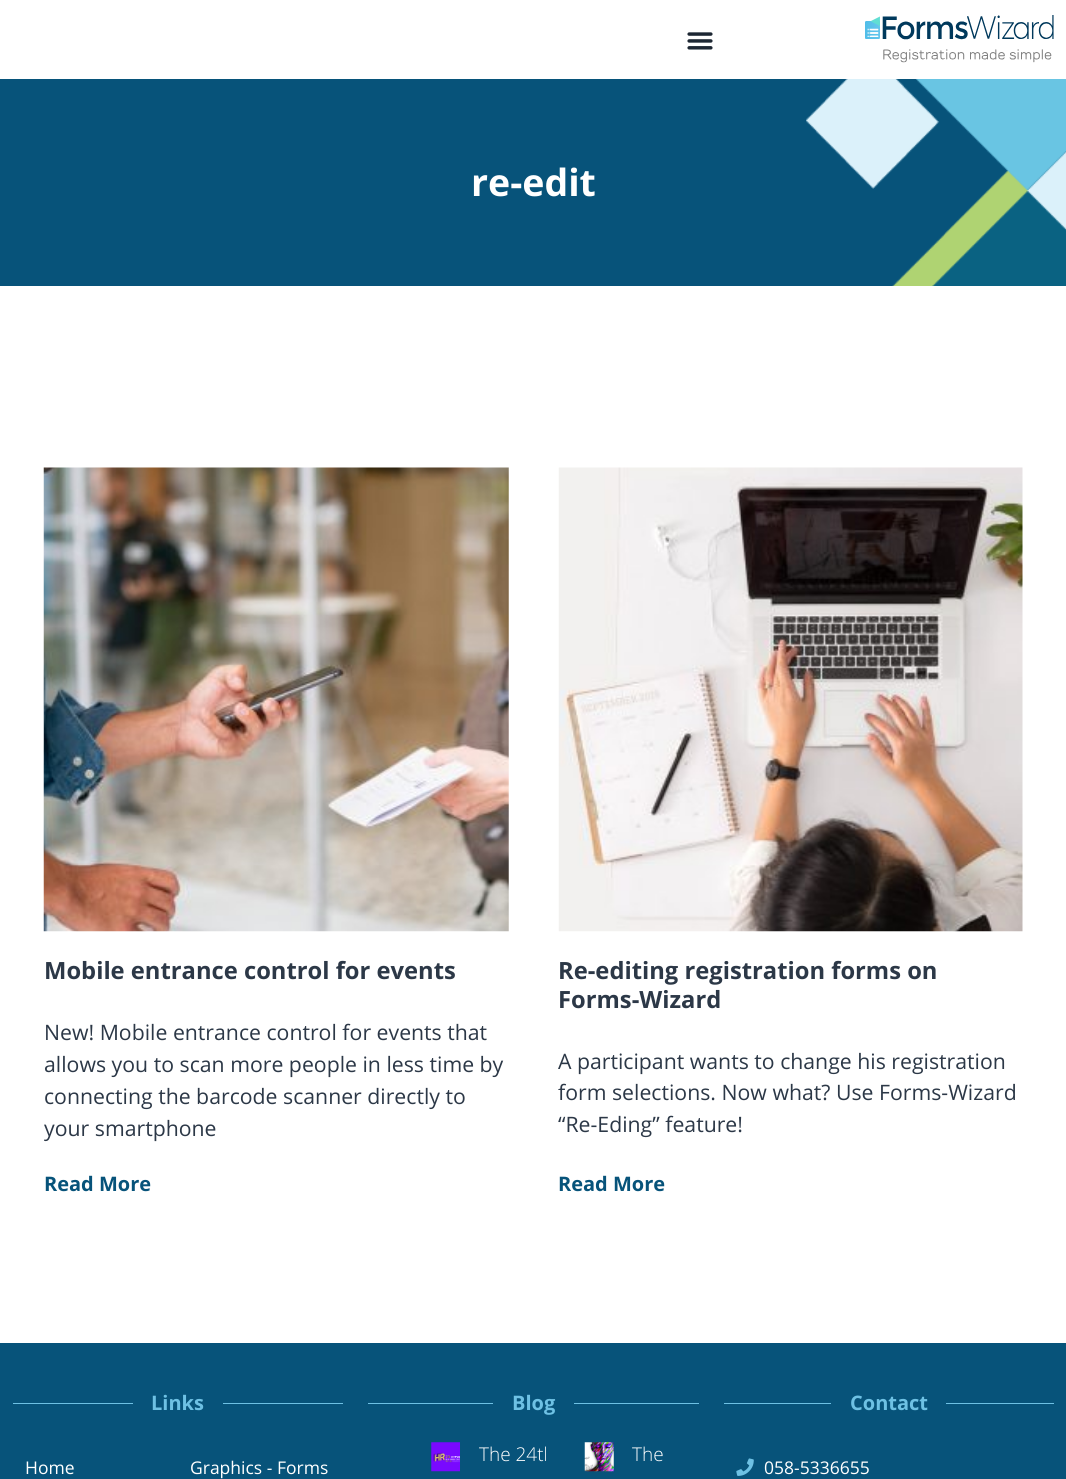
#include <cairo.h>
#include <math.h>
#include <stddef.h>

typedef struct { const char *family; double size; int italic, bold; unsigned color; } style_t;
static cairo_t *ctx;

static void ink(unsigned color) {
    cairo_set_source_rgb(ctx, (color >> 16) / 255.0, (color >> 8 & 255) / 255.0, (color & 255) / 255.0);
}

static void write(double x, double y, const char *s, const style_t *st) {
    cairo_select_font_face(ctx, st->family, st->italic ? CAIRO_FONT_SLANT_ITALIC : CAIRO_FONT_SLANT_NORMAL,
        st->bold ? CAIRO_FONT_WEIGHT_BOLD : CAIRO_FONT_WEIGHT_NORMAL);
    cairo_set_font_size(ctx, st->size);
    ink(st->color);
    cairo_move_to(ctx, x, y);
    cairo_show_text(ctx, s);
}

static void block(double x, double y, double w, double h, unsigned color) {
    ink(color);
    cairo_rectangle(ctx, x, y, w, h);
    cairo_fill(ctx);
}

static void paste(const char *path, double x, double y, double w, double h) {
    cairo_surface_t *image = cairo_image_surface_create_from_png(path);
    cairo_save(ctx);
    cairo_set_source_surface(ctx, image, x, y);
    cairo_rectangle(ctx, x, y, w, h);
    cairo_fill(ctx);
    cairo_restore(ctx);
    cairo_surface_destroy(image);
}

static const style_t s1 = {"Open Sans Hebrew", 37.5, 0, 1, 0xffffff};
static const style_t s2 = {"Open Sans Hebrew", 23.75, 0, 1, 0x2c3847};
static const style_t s3 = {"Open Sans Hebrew", 21.25, 0, 0, 0x2c3847};
static const style_t s4 = {"Open Sans Hebrew", 20, 0, 1, 0x07537a};
static const style_t s5 = {"Open Sans Hebrew", 20, 0, 1, 0x6ec1e4};
static const style_t s6 = {"Open Sans Hebrew", 17.5, 0, 0, 0xffffff};
static const style_t s7 = {"Open Sans Hebrew Light", 19, 0, 0, 0xffffff};

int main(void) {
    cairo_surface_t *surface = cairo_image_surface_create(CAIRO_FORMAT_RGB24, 1066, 1479);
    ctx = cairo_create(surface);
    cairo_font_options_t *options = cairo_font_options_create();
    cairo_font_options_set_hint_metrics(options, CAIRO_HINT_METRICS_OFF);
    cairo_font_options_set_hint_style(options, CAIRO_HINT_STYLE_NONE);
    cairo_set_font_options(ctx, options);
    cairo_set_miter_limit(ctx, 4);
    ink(0x07537a);
    cairo_paint(ctx);
    block(0, 0, 1066, 79, 0xffffff);
    paste("pic1.png", 687, 32, 26, 18);
    paste("pic2.png", 865, 15, 189, 48);
    paste("pic3.png", 806, 79, 260, 207);
    write(471, 196, "re-edit", &s1);
    block(0, 286, 1066, 1057, 0xffffff);
    paste("pic4.png", 43, 467, 466, 465);
    write(44, 979, "Mobile entrance control for events", &s2);
    write(44, 1040, "New! Mobile entrance control for events that", &s3);
    write(44, 1072, "allows you to scan more people in less time by", &s3);
    write(44, 1104, "connecting the barcode scanner directly to", &s3);
    write(44, 1136, "your smartphone", &s3);
    write(44, 1191, "Read More", &s4);
    paste("pic5.png", 558, 467, 465, 465);
    write(558, 979, "Re-editing registration forms on", &s2);
    write(558, 1008, "Forms-Wizard", &s2);
    write(558, 1069, "A participant wants to change his registration", &s3);
    write(558, 1100, "form selections. Now what? Use Forms-Wizard", &s3);
    write(558, 1132, "“Re-Eding” feature!", &s3);
    write(558, 1191, "Read More", &s4);
    block(13, 1403, 120, 1, 0x6ec1e4);
    write(151, 1410, "Links", &s5);
    block(223, 1403, 120, 1, 0x6ec1e4);
    write(25, 1474, "Home", &s6);
    write(190, 1474, "Graphics - Forms", &s6);
    block(368, 1403, 125, 1, 0x6ec1e4);
    write(512, 1410, "Blog", &s5);
    block(574, 1403, 125, 1, 0x6ec1e4);
    paste("pic6.png", 431, 1442, 29, 30);
    cairo_save(ctx);
    cairo_rectangle(ctx, 431, 1441, 115, 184);
    cairo_clip(ctx);
    write(479, 1461, "The 24th", &s7);
    cairo_restore(ctx);
    paste("pic7.png", 584, 1442, 30, 30);
    write(632, 1461, "The", &s7);
    block(724, 1403, 107, 1, 0x6ec1e4);
    write(850, 1410, "Contact", &s5);
    block(946, 1403, 108, 1, 0x6ec1e4);
    paste("pic8.png", 736, 1458, 18, 18);
    write(764, 1474, "058-5336655", &s6);
    cairo_surface_write_to_png(surface, "screenshot.png");
    cairo_font_options_destroy(options);
    cairo_destroy(ctx);
    cairo_surface_destroy(surface);
    return 0;
}
